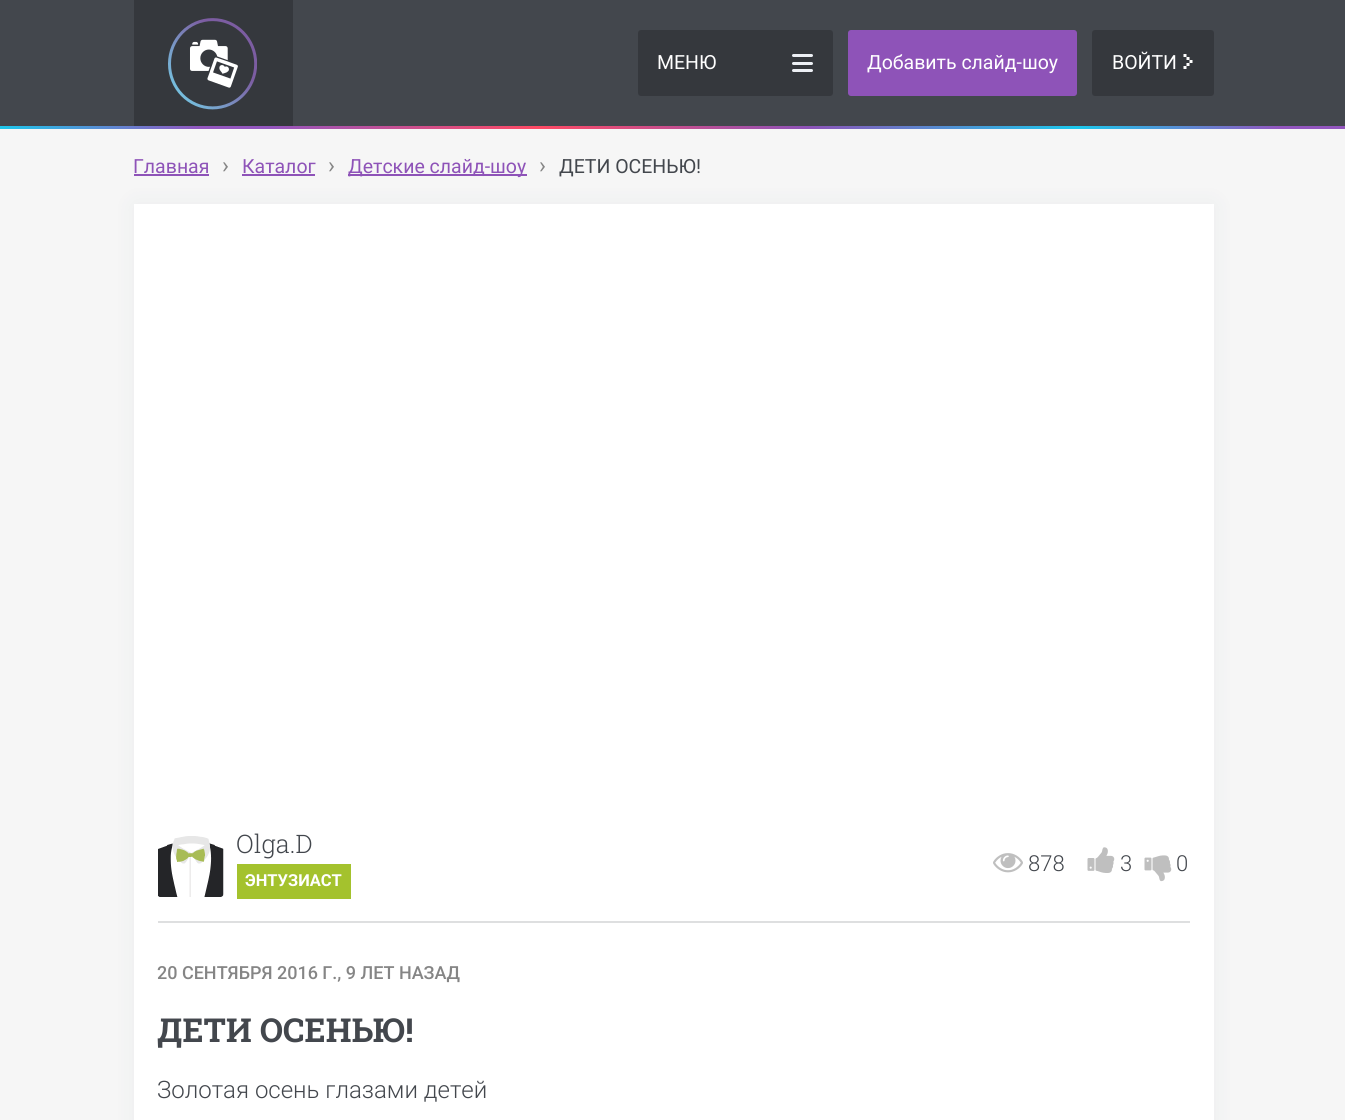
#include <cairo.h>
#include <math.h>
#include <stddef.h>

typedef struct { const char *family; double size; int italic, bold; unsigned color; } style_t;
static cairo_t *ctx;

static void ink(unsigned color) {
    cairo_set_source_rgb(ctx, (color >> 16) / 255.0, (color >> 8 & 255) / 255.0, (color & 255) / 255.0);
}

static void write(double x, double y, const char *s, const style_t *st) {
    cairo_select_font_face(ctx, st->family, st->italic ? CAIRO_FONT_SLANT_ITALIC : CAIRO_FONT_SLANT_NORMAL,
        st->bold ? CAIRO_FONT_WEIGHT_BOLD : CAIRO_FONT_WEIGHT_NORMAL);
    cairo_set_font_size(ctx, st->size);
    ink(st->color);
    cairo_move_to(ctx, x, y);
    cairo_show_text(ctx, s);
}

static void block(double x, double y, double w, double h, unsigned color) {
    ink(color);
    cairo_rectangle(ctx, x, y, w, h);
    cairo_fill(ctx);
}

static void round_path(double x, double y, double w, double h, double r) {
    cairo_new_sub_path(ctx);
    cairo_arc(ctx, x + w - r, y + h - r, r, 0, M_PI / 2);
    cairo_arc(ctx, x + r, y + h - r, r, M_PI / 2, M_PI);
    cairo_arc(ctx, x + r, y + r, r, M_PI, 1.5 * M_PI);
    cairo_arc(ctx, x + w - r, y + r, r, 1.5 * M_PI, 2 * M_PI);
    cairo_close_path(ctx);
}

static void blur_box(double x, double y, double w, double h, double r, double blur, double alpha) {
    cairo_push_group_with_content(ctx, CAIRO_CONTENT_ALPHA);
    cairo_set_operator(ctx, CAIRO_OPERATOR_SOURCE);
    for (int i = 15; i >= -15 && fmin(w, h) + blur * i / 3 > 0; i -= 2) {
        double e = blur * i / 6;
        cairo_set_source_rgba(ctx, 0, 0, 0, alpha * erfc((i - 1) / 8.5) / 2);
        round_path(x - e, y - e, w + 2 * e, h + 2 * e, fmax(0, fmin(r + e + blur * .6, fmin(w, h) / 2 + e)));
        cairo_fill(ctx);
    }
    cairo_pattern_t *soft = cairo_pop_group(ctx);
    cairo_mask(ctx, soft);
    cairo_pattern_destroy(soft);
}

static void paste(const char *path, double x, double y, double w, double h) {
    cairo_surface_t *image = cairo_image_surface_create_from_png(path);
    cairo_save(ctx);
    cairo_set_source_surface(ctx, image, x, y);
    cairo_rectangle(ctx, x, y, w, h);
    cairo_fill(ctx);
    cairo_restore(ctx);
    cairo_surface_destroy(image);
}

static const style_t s1 = {"Roboto", 19.5, 0, 0, 0xffffff};
static const style_t s2 = {"Roboto", 19.5, 0, 0, 0x8e53b8};
static const style_t s3 = {"Roboto", 23, 0, 0, 0x858585};
static const style_t s4 = {"Roboto", 19.5, 0, 0, 0x43474d};
static const style_t s5 = {"Roboto Slab Light", 25.5, 0, 0, 0x43474d};
static const style_t s6 = {"Roboto", 16.5, 0, 1, 0xffffff};
static const style_t s7 = {"Roboto Light", 22, 0, 0, 0x43474d};
static const style_t s8 = {"Roboto Medium", 18, 0, 0, 0x858585};
static const style_t s9 = {"Roboto Slab", 33, 0, 1, 0x43474d};
static const style_t s10 = {"Roboto Light", 24, 0, 0, 0x43474d};

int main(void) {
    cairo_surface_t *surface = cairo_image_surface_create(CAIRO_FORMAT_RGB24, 1345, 1120);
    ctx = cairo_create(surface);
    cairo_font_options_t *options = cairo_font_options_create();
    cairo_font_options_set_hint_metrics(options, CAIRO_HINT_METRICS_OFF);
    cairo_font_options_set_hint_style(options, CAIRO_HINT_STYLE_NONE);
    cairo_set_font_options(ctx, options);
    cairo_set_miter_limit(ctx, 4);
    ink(0xf6f6f6);
    cairo_paint(ctx);
    block(0, 0, 1345, 126, 0x43474d);
    paste("pic1.png", 0, 126, 1345, 3);
    block(134, 0, 159, 126, 0x35383d);
    paste("pic2.png", 168, 18, 89, 92);
    round_path(639, 31, 193, 64, 2);
    cairo_fill_preserve(ctx);
    cairo_stroke(ctx);
    write(657, 69, "МЕНЮ", &s1);
    ink(0xedf0f5);
    round_path(792, 54, 21, 3, 1.5);
    cairo_fill(ctx);
    round_path(792, 62, 21, 3, 1.5);
    cairo_fill(ctx);
    round_path(792, 69, 21, 3, 1.5);
    cairo_fill(ctx);
    ink(0x8e53b8);
    round_path(849, 31, 227, 64, 2);
    cairo_fill_preserve(ctx);
    cairo_stroke(ctx);
    write(867, 69, "Добавить слайд-шоу", &s1);
    ink(0x35383d);
    round_path(1093, 31, 120, 64, 2);
    cairo_fill_preserve(ctx);
    cairo_stroke(ctx);
    write(1112, 69, "ВОЙТИ", &s1);
    paste("pic3.png", 1183, 54, 10, 15);
    ink(0x163543);
    blur_box(134, 204, 1080, 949, 0, 11, 0.05);
    write(133, 173, "Главная", &s2);
    block(134, 174, 75, 2, 0x8e53b8);
    write(222, 173, "›", &s3);
    write(242, 173, "Каталог", &s2);
    block(242, 174, 73, 2, 0x8e53b8);
    write(328, 173, "›", &s3);
    block(348, 174, 179, 2, 0x8e53b8);
    write(348, 173, "Детские слайд-шоу", &s2);
    write(539, 173, "›", &s3);
    write(559, 173, "ДЕТИ ОСЕНЬЮ!", &s4);
    block(134, 204, 1080, 916, 0xffffff);
    block(158, 921, 1032, 2, 0xdedfe0);
    paste("pic4.png", 158, 836, 66, 61);
    write(236, 853, "Olga.D", &s5);
    block(237, 864, 114, 35, 0xa4c22d);
    write(245, 886, "ЭНТУЗИАСТ", &s6);
    paste("pic5.png", 993, 853, 30, 20);
    write(1028, 871, "878", &s7);
    paste("pic6.png", 1087, 847, 28, 26);
    write(1120, 871, "3", &s7);
    paste("pic7.png", 1144, 855, 28, 27);
    write(1176, 871, "0", &s7);
    write(157, 979, "20 СЕНТЯБРЯ 2016 Г., 9 ЛЕТ НАЗАД", &s8);
    write(157, 1042, "ДЕТИ ОСЕНЬЮ!", &s9);
    write(157, 1098, "Золотая осень глазами детей", &s10);
    cairo_surface_write_to_png(surface, "screenshot.png");
    cairo_font_options_destroy(options);
    cairo_destroy(ctx);
    cairo_surface_destroy(surface);
    return 0;
}
